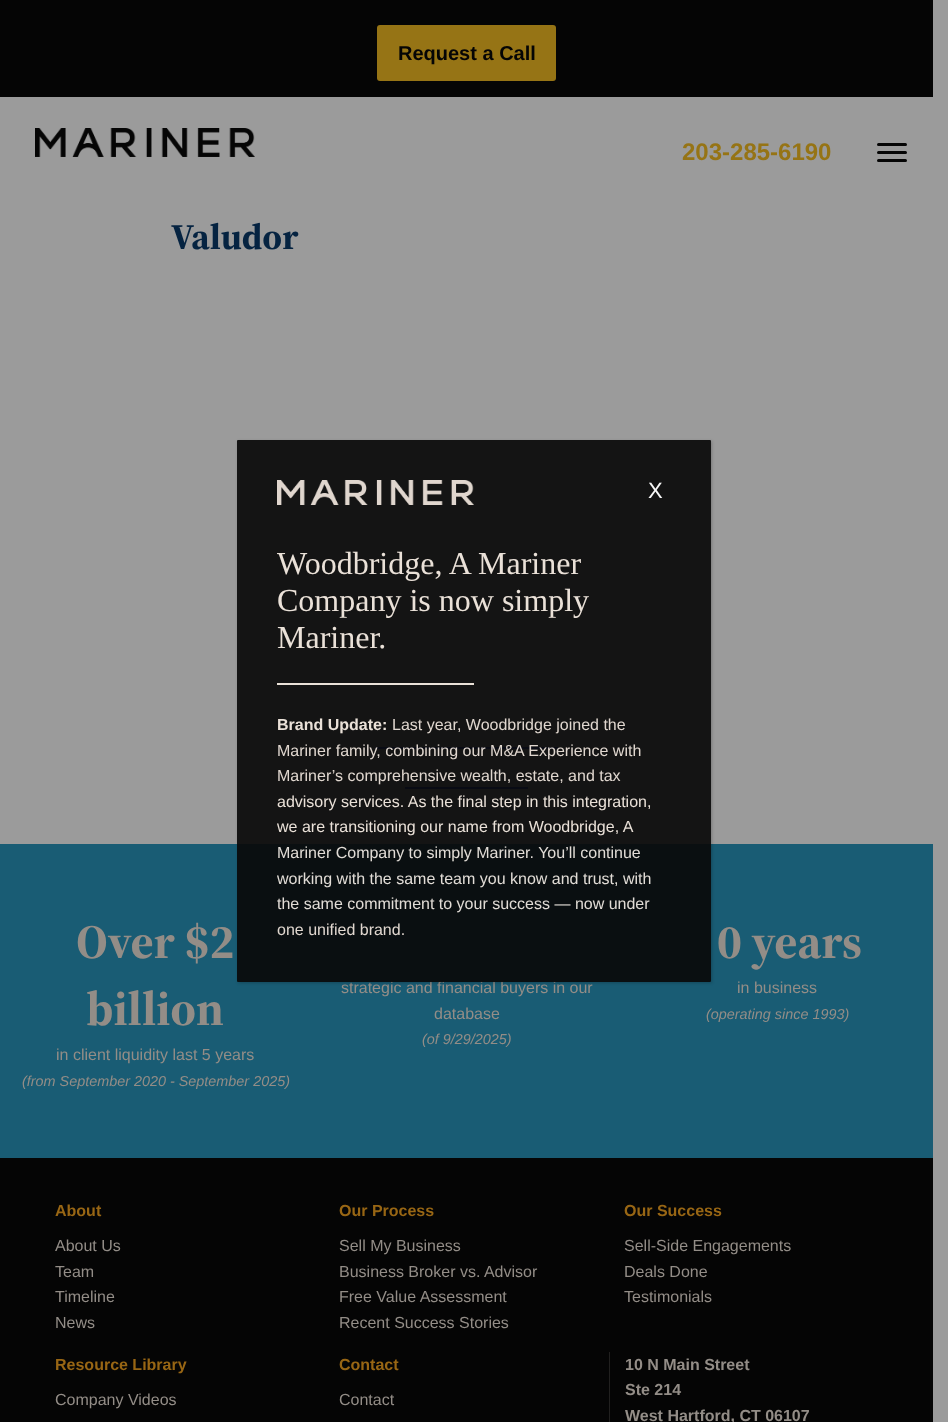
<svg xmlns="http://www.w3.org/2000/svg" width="948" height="1422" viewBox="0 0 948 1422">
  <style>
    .t1 { font: bold 20px Liberation Sans; fill: #050505; }
    .t2 { font: bold 24px Liberation Sans; fill: #967415; }
    .t3 { font: bold 36px 'Source Serif 4'; fill: #052341; }
    .t4 { font: bold 48px 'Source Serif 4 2'; fill: #938d87; }
    .t5 { font: 16px Liberation Sans; fill: #938d87; }
    .t6 { font: italic 14.4px Liberation Sans; fill: #938d87; }
    .t7 { font: bold 16px Liberation Sans; fill: #986614; }
    .t8 { font: bold 16px Liberation Sans; fill: #938d87; }
    .t9 { font: 22px Liberation Sans; fill: #f8f8f8; }
    .t10 { font: 32px Liberation Serif; fill: #eae1d8; }
    .t11 { font: bold 16px Liberation Sans; fill: #eae1d8; }
    .t12 { font: 16px Liberation Sans; fill: #e0d7cf; }
    .t13 { font: 16px Liberation Sans; fill: #eae1d8; }
    .t14 { font: 16px Liberation Sans; fill: #e1dcd6; }
  </style>
  <defs>
    <clipPath id="clip1"><path d="M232 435H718V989H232ZM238 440H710C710.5 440 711 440.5 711 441V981C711 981.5 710.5 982 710 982H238C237.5 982 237 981.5 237 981V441C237 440.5 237.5 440 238 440Z" clip-rule="evenodd"/></clipPath>
  </defs>
  <rect width="100%" height="100%" fill="#9b9b9b"/>
  <rect x="0" y="0" width="933" height="97" fill="#050505"/>
  <rect x="377" y="25" width="179" height="56" rx="3" fill="#967415"/>
  <text x="398" y="60" class="t1">Request a Call</text>
  <image x="35" y="128" width="220" height="29" href="images/1.png"/>
  <text x="682" y="160" class="t2">203-285-6190</text>
  <rect x="877" y="143" width="30" height="3" rx="1.5" fill="#050505"/>
  <rect x="877" y="151" width="30" height="3" rx="1.5" fill="#050505"/>
  <rect x="877" y="159" width="30" height="3" rx="1.5" fill="#050505"/>
  <text x="171" y="249" class="t3">Valudor</text>
  <rect x="375" y="747" width="183" height="2" fill="#05269b"/>
  <rect x="405" y="787" width="123" height="2" fill="#05269b"/>
  <rect x="0" y="844" width="933" height="314" fill="#195c74"/>
  <text x="76" y="958" class="t4">Over $2</text>
  <text x="86" y="1025" class="t4">billion</text>
  <text x="56" y="1060" class="t5">in client liquidity last 5 years</text>
  <text x="22" y="1086" class="t6">(from September 2020 - September 2025)</text>
  <text x="341" y="993" class="t5">strategic and financial buyers in our</text>
  <text x="434" y="1019" class="t5">database</text>
  <text x="422" y="1044" class="t6">(of 9/29/2025)</text>
  <text x="717" y="958" class="t4">0 years</text>
  <text x="737" y="993" class="t5">in business</text>
  <text x="706" y="1019" class="t6">(operating since 1993)</text>
  <rect x="0" y="1158" width="933" height="264" fill="#050505"/>
  <text x="55" y="1216" class="t7">About</text>
  <text x="55" y="1251" class="t5">About Us</text>
  <text x="55" y="1277" class="t5">Team</text>
  <text x="55" y="1302" class="t5">Timeline</text>
  <text x="55" y="1328" class="t5">News</text>
  <text x="339" y="1216" class="t7">Our Process</text>
  <text x="339" y="1251" class="t5">Sell My Business</text>
  <text x="339" y="1277" class="t5">Business Broker vs. Advisor</text>
  <text x="339" y="1302" class="t5">Free Value Assessment</text>
  <text x="339" y="1328" class="t5">Recent Success Stories</text>
  <text x="624" y="1216" class="t7">Our Success</text>
  <text x="624" y="1251" class="t5">Sell-Side Engagements</text>
  <text x="624" y="1277" class="t5">Deals Done</text>
  <text x="624" y="1302" class="t5">Testimonials</text>
  <text x="55" y="1370" class="t7">Resource Library</text>
  <text x="55" y="1405" class="t5">Company Videos</text>
  <text x="339" y="1370" class="t7">Contact</text>
  <text x="339" y="1405" class="t5">Contact</text>
  <rect x="609" y="1352" width="1" height="70" fill="#21201f"/>
  <text x="625" y="1370" class="t8">10 N Main Street</text>
  <text x="625" y="1395" class="t8">Ste 214</text>
  <text x="625" y="1421" class="t8">West Hartford, CT 06107</text>
  <g clip-path="url(#clip1)">
    <rect x="238" y="441" width="474" height="542" rx="1" fill="#02020236" filter="blur(1.5px)"/>
  </g>
  <rect x="237" y="440" width="474" height="542" rx="1" fill="#0a0a0aed"/>
  <text x="648" y="498" class="t9">X</text>
  <image x="277" y="480" width="197" height="25" href="images/2.png"/>
  <text x="277" y="574" class="t10">Woodbridge, A Mariner</text>
  <text x="277" y="611" class="t10">Company is now simply</text>
  <text x="277" y="648" class="t10">Mariner.</text>
  <rect x="277" y="683" width="197" height="2" fill="#eae1d8"/>
  <text x="277" y="730" class="t11">Brand Update:</text>
  <text x="392" y="730" class="t12">Last year, Woodbridge joined the</text>
  <text x="277" y="756" class="t12">Mariner family, combining our M&amp;A Experience with</text>
  <text x="277" y="781" class="t12">Mariner’s comprehensive wealth, estate, and tax</text>
  <text x="277" y="807" class="t13">advisory services. As the final step in this integration,</text>
  <text x="277" y="832" class="t13">we are transitioning our name from Woodbridge, A</text>
  <text x="277" y="858" class="t14">Mariner Company to simply Mariner. You’ll continue</text>
  <text x="277" y="884" class="t14">working with the same team you know and trust, with</text>
  <text x="277" y="909" class="t14">the same commitment to your success — now under</text>
  <text x="277" y="935" class="t12">one unified brand.</text>
</svg>
